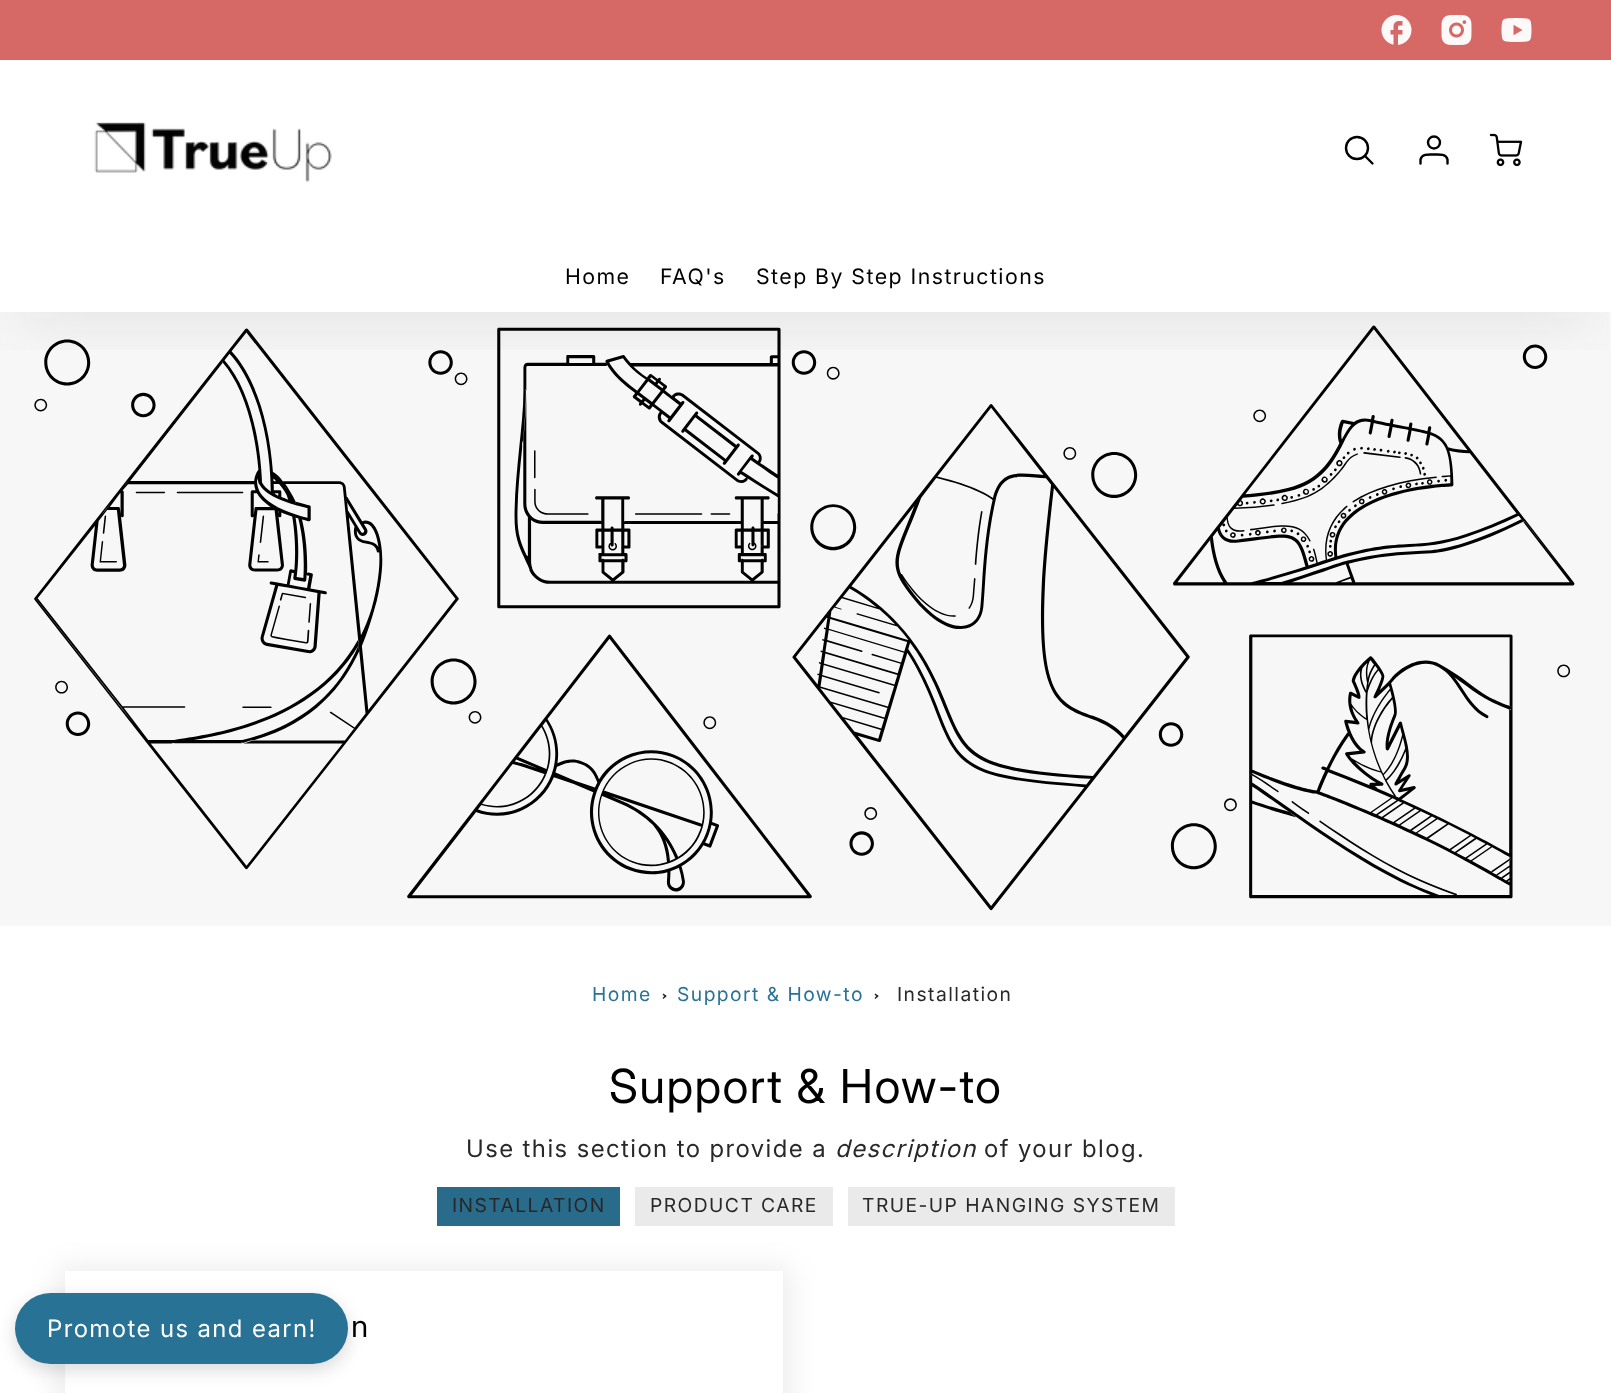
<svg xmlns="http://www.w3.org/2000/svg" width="1611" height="1393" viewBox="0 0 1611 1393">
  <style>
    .t1 { font: 21.3px Inter; letter-spacing: 1.45px; fill: #000; }
    .t2 { font: 24px 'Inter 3'; letter-spacing: 1.45px; fill: #fff; }
    .t3 { font: 19.25px Inter; letter-spacing: 1.45px; fill: #287295; }
    .t4 { font: 19.25px Inter; letter-spacing: 1.45px; fill: #282828; }
    .t5 { font: 46.9px 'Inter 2'; letter-spacing: 1.45px; fill: #000; }
    .t6 { font: 24px 'Inter 3'; letter-spacing: 1.45px; fill: #282828; }
    .t7 { font: italic 24px Inter; letter-spacing: 1.45px; fill: #282828; }
    .t8 { font: 30px 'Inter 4'; letter-spacing: 1.45px; fill: #000; }
  </style>
  <defs>
    <clipPath id="clip1"><rect x="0" y="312" width="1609" height="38"/></clipPath>
    <clipPath id="clip2"><path d="M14 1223H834V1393H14ZM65 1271H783V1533H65Z" clip-rule="evenodd"/></clipPath>
  </defs>
  <rect width="100%" height="100%" fill="#fff"/>
  <rect x="0" y="0" width="1611" height="60" fill="#d66965"/>
  <image x="1381" y="15" width="31" height="30" href="images/1.png"/>
  <image x="1441" y="15" width="31" height="30" href="images/2.png"/>
  <image x="1501" y="18" width="31" height="24" href="images/3.png"/>
  <rect x="0" y="312" width="1611" height="614" fill="#f7f7f7"/>
  <image x="34" y="325" width="1541" height="586" href="images/6.png"/>
  <g clip-path="url(#clip1)">
    <rect x="14" y="96" width="1581" height="222" fill="#2929291a" filter="blur(37.5px)"/>
  </g>
  <image x="94" y="122" width="238" height="60" href="images/4.png"/>
  <circle cx="1357" cy="148" r="11" fill="none" stroke="#000" stroke-width="2.4"/>
  <path d="M1372.5 163.5L1365 156" fill="none" stroke="#000" stroke-width="2.4" stroke-linecap="round" stroke-linejoin="round"/>
  <circle cx="1434" cy="142.5" r="6" fill="none" stroke="#000" stroke-width="2.4"/>
  <path d="M1447.5 163.5V159.5C1446 153.5 1438.5 154.5 1434 154.5C1429.5 154.5 1422 153.5 1420.5 159.5V163.5" fill="none" stroke="#000" stroke-width="2.4" stroke-linecap="round" stroke-linejoin="round"/>
  <image x="1489" y="133" width="34" height="34" href="images/5.png"/>
  <text x="565" y="284" class="t1">Home</text>
  <text x="660" y="284" class="t1">FAQ's</text>
  <text x="756" y="284" class="t1">Step By Step Instructions</text>
  <rect x="15" y="1299" width="333" height="71" rx="35.5" fill="#00000026" filter="blur(9px)"/>
  <rect x="437" y="1187" width="183" height="39" fill="#286b8a"/>
  <rect x="635" y="1187" width="198" height="39" fill="#eaeaea"/>
  <g clip-path="url(#clip2)">
    <rect x="57" y="1266" width="734" height="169" fill="#00000012" filter="blur(14px)"/>
  </g>
  <rect x="15" y="1293" width="333" height="71" rx="35.5" fill="#287295"/>
  <text x="47" y="1337" class="t2">Promote us and earn!</text>
  <text x="592" y="1001" class="t3">Home</text>
  <path d="M663.5 993.5L666.5 996L665.5 997.5L662.5 994.5Z" fill="#282828"/>
  <path d="M665.5 995L666.5 996L663.5 999L662.5 998Z" fill="#282828"/>
  <text x="677" y="1001" class="t3">Support &amp; How-to</text>
  <path d="M875.5 993.5L878.5 996L877.5 997.5L874.5 994.5Z" fill="#282828"/>
  <path d="M877.5 995L878.5 996L875.5 999L874.5 998Z" fill="#282828"/>
  <text x="897" y="1001" class="t4">Installation</text>
  <text x="609" y="1103" class="t5">Support &amp; How-to</text>
  <text x="466" y="1157" class="t6">Use this section to provide a</text>
  <text x="835" y="1157" class="t7">description</text>
  <text x="984" y="1157" class="t6">of your blog.</text>
  <text x="452" y="1212" class="t4">INSTALLATION</text>
  <text x="650" y="1212" class="t4">PRODUCT CARE</text>
  <rect x="848" y="1187" width="327" height="39" fill="#eaeaea"/>
  <text x="862" y="1212" class="t4">TRUE-UP HANGING SYSTEM</text>
  <text x="351" y="1337" class="t8">n</text>
</svg>
